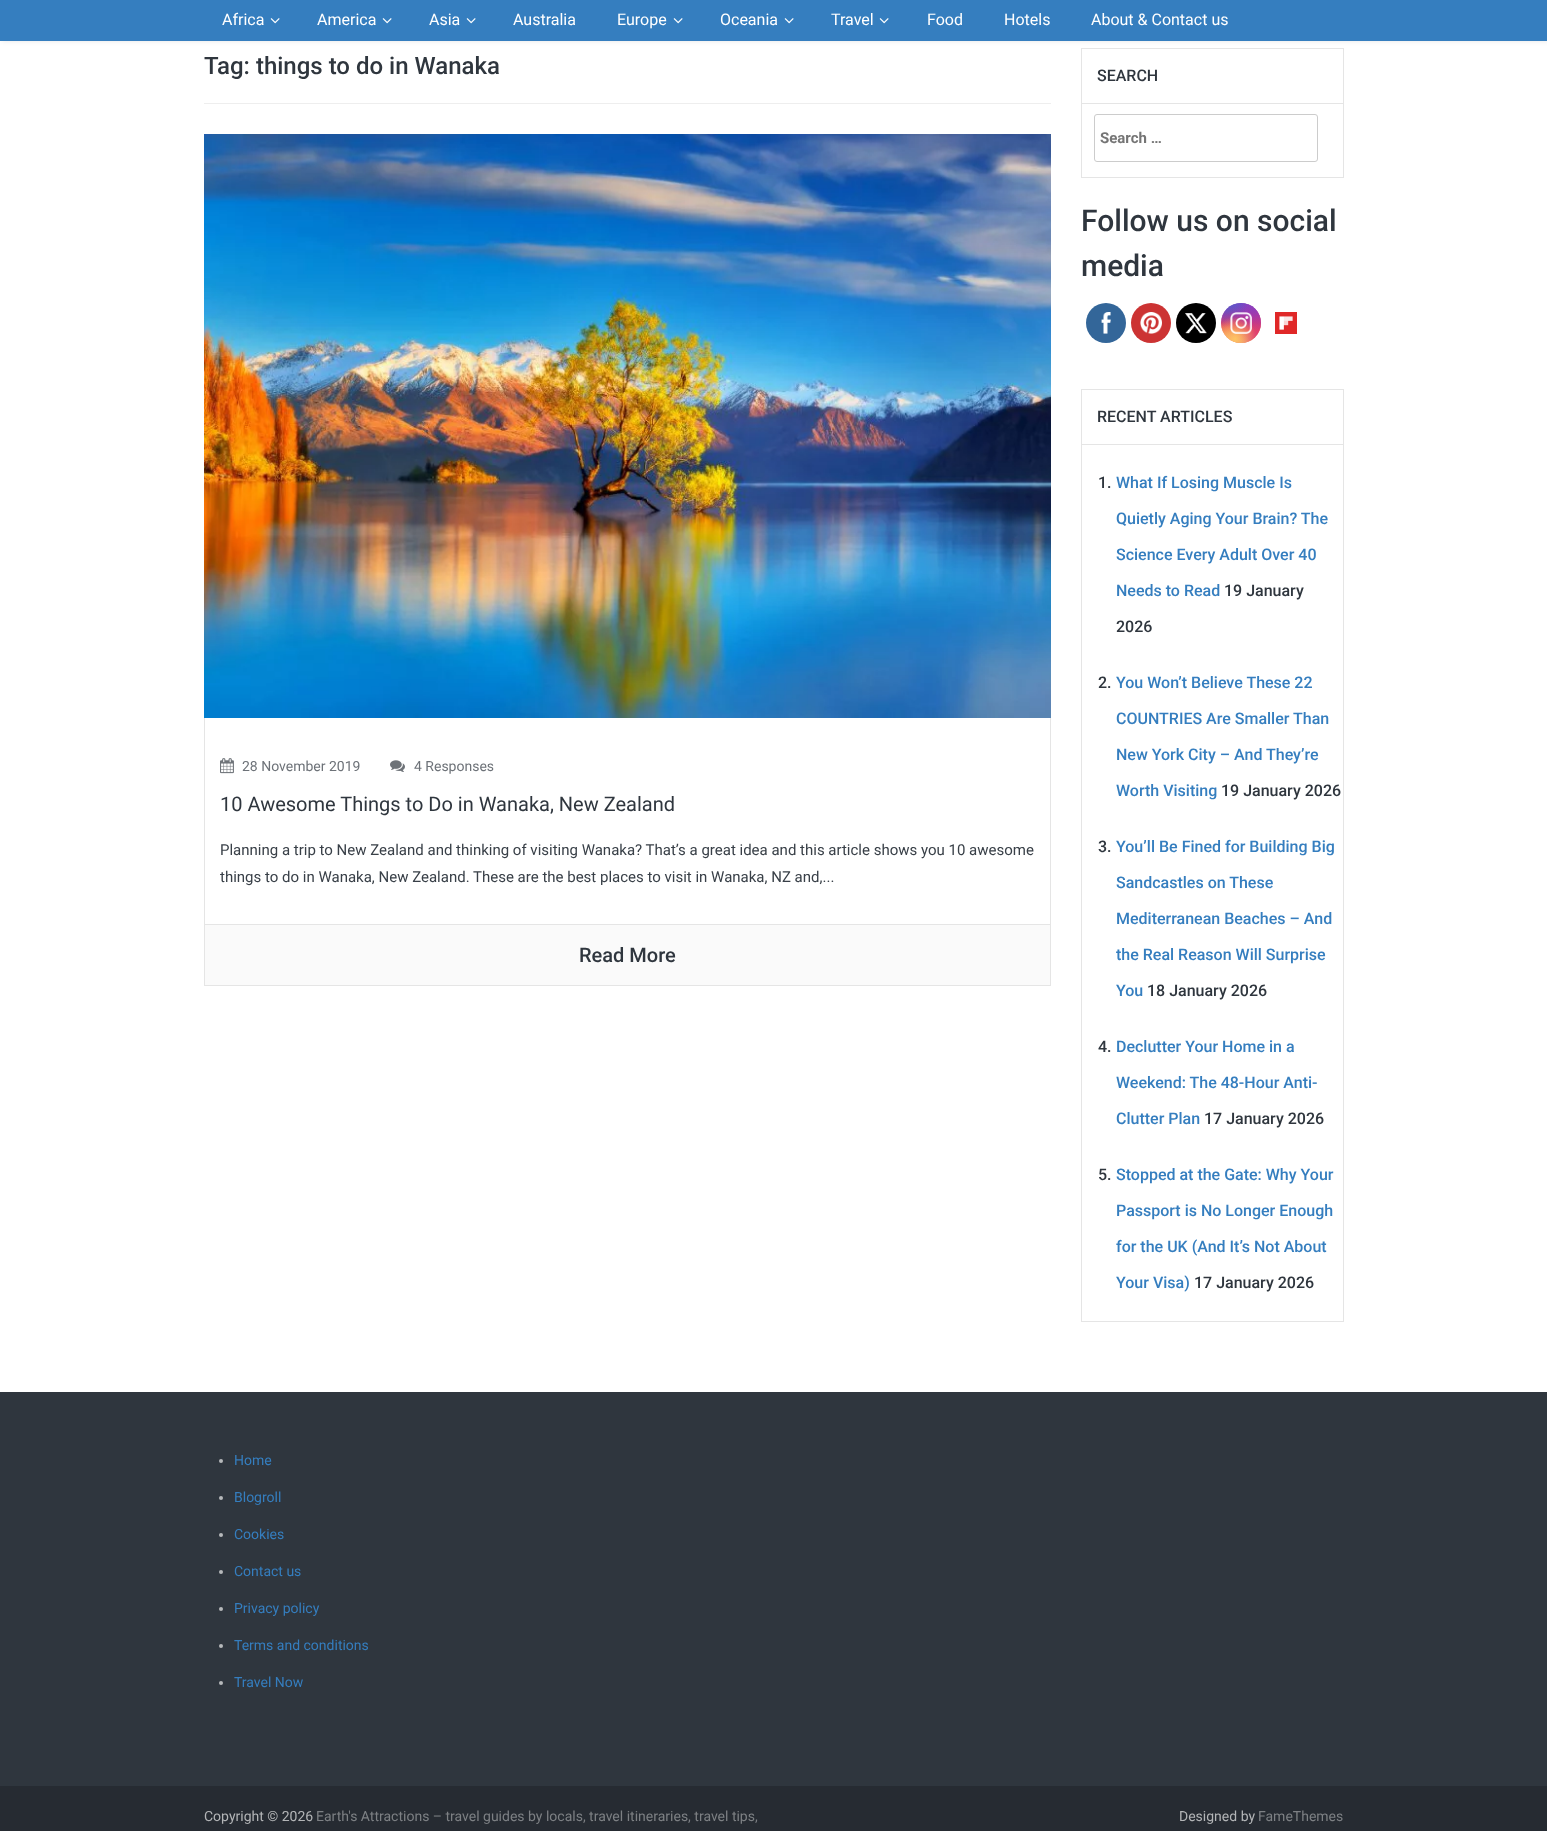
<svg xmlns="http://www.w3.org/2000/svg" width="1547" height="1831" viewBox="0 0 1547 1831">
  <style>
    .t1 { font: 16px Roboto; fill: #fff; }
    .t2 { font: 500 24px Roboto; fill: #2f363e; }
    .t3 { font: 14px Roboto; fill: #6d7278; }
    .t4 { font: 20px Roboto; fill: #2f363e; }
    .t5 { font: 15px Roboto; fill: #394048; }
    .t6 { font: 500 20px Roboto; fill: #2f363e; }
    .t7 { font: 500 16px Roboto; fill: #2f363e; }
    .t8 { font: bold 15px Roboto; fill: #757575; }
    .t9 { font: 500 30px Roboto; fill: #2f363e; }
    .t10 { font: 500 16px Roboto; fill: #357ebf; }
    .t11 { font: 14px Roboto; fill: #357ebf; }
    .t12 { font: 14px Roboto; fill: #b3b5b7; }
    .t13 { font: 14px Roboto; fill: #7d8084; }
  </style>
  <defs>
    <linearGradient id="g1" gradientUnits="userSpaceOnUse" x1="1241" y1="303" x2="1241" y2="343"><stop offset="0" stop-color="#6559ca"/><stop offset="0.3" stop-color="#bc318f"/><stop offset="0.5" stop-color="#e33f5f"/><stop offset="0.7" stop-color="#f77638"/><stop offset="1" stop-color="#fec66d"/></linearGradient>
    <radialGradient id="g2" gradientUnits="userSpaceOnUse" cx="1261" cy="343" r="57"><stop offset="0" stop-color="#d9317a"/><stop offset="1" stop-color="#d9317a" stop-opacity="0"/></radialGradient>
    <radialGradient id="g3" gradientUnits="userSpaceOnUse" cx="0" cy="0" r="1" gradientTransform="matrix(34 0 0 68 1245 295)"><stop offset="0" stop-color="#893dc2"/><stop offset="0.5" stop-color="#893dc2" stop-opacity="0"/></radialGradient>
    <radialGradient id="g4" gradientUnits="userSpaceOnUse" cx="1261" cy="303" r="57"><stop offset="0" stop-color="#893dc2"/><stop offset="0.5" stop-color="#893dc2" stop-opacity="0"/></radialGradient>
    <radialGradient id="g5" gradientUnits="userSpaceOnUse" cx="0" cy="0" r="1" gradientTransform="matrix(45 0 0 85 1229 283)"><stop offset="0" stop-color="#5258cf"/><stop offset="0.5" stop-color="#5258cf" stop-opacity="0"/></radialGradient>
    <radialGradient id="g6" gradientUnits="userSpaceOnUse" cx="0" cy="0" r="1" gradientTransform="matrix(57 0 0 71 1221 293)"><stop offset="0" stop-color="#5258cf"/><stop offset="0.5" stop-color="#5258cf" stop-opacity="0"/></radialGradient>
    <radialGradient id="g7" gradientUnits="userSpaceOnUse" cx="1221" cy="359" r="69"><stop offset="0" stop-color="#fec564"/><stop offset="0.5" stop-color="#fec564" stop-opacity="0"/></radialGradient>
    <radialGradient id="g8" gradientUnits="userSpaceOnUse" cx="1235" cy="339" r="44"><stop offset="0" stop-color="#fec564"/><stop offset="0.5" stop-color="#fec564" stop-opacity="0"/></radialGradient>
  </defs>
  <rect width="100%" height="100%" fill="#fff"/>
  <rect x="1081.5" y="48.5" width="262" height="129" fill="none" stroke="#e5e5e5"/>
  <rect x="2" y="0" width="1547" height="41" fill="#0000001a" filter="blur(2.5px)"/>
  <rect x="0" y="0" width="1547" height="41" fill="#357ebf"/>
  <text x="222" y="25" class="t1">Africa</text>
  <image x="270" y="18" width="10" height="6" href="images/1.png"/>
  <text x="317" y="25" class="t1">America</text>
  <image x="382" y="18" width="10" height="6" href="images/1.png"/>
  <text x="429" y="25" class="t1">Asia</text>
  <image x="466" y="18" width="10" height="6" href="images/1.png"/>
  <text x="513" y="25" class="t1">Australia</text>
  <text x="617" y="25" class="t1">Europe</text>
  <image x="673" y="18" width="10" height="6" href="images/1.png"/>
  <text x="720" y="25" class="t1">Oceania</text>
  <image x="784" y="18" width="10" height="6" href="images/1.png"/>
  <text x="831" y="25" class="t1">Travel</text>
  <image x="879" y="18" width="10" height="6" href="images/1.png"/>
  <text x="927" y="25" class="t1">Food</text>
  <text x="1004" y="25" class="t1">Hotels</text>
  <text x="1091" y="25" class="t1">About &amp; Contact us</text>
  <rect x="204" y="103" width="847" height="1" fill="#eee"/>
  <text x="204" y="74" class="t2">Tag: things to do in Wanaka</text>
  <image x="204" y="134" width="847" height="584" href="images/2.png"/>
  <rect x="1050" y="718" width="1" height="268" fill="#e5e5e5"/>
  <rect x="204" y="924" width="847" height="1" fill="#e5e5e5"/>
  <rect x="204" y="718" width="1" height="207" fill="#e5e5e5"/>
  <image x="220" y="758" width="14" height="16" href="images/3.png"/>
  <text x="242" y="771" class="t3">28 November 2019</text>
  <image x="390" y="760" width="15" height="12" href="images/4.png"/>
  <text x="414" y="771" class="t3">4 Responses</text>
  <text x="220" y="811" class="t4">10 Awesome Things to Do in Wanaka, New Zealand</text>
  <text x="220" y="855" class="t5">Planning a trip to New Zealand and thinking of visiting Wanaka? That’s a great idea and this article shows you 10 awesome</text>
  <text x="220" y="882" class="t5">things to do in Wanaka, New Zealand. These are the best places to visit in Wanaka, NZ and,...</text>
  <rect x="205" y="925" width="845" height="60" fill="#fafafa"/>
  <rect x="204" y="985" width="847" height="1" fill="#e5e5e5"/>
  <rect x="204" y="925" width="1" height="61" fill="#e5e5e5"/>
  <text x="579" y="962" class="t6">Read More</text>
  <rect x="1082" y="103" width="261" height="1" fill="#e5e5e5"/>
  <text x="1097" y="81" class="t7">SEARCH</text>
  <rect x="1094.5" y="114.5" width="223" height="47" rx="2.5" fill="none" stroke="#ccc"/>
  <text x="1100" y="143" class="t8">Search …</text>
  <text x="1081" y="231" class="t9">Follow us on social</text>
  <text x="1081" y="276" class="t9">media</text>
  <circle cx="1106" cy="323" r="20" fill="#369"/>
  <image x="1101" y="312" width="10" height="22" href="images/5.png"/>
  <circle cx="1151" cy="323" r="20" fill="#c33"/>
  <image x="1140" y="312" width="22" height="22" href="images/6.png"/>
  <circle cx="1196" cy="323" r="20" fill="#000"/>
  <image x="1185" y="313" width="22" height="21" href="images/7.png"/>
  <circle cx="1241" cy="323" r="20" fill="url(#g1)"/>
  <circle cx="1241" cy="323" r="20" fill="url(#g2)"/>
  <circle cx="1241" cy="323" r="20" fill="url(#g3)"/>
  <circle cx="1241" cy="323" r="20" fill="url(#g4)"/>
  <circle cx="1241" cy="323" r="20" fill="url(#g5)"/>
  <circle cx="1241" cy="323" r="20" fill="url(#g6)"/>
  <circle cx="1241" cy="323" r="20" fill="url(#g7)"/>
  <circle cx="1241" cy="323" r="20" fill="url(#g8)"/>
  <image x="1230" y="312" width="22" height="22" href="images/8.png"/>
  <image x="1275" y="312" width="22" height="22" href="images/9.png"/>
  <rect x="1081.5" y="389.5" width="262" height="932" fill="none" stroke="#e5e5e5"/>
  <rect x="1082" y="444" width="261" height="1" fill="#e5e5e5"/>
  <text x="1097" y="422" class="t7">RECENT ARTICLES</text>
  <text x="1098" y="488" class="t7">1.</text>
  <text x="1116" y="488" class="t10">What If Losing Muscle Is</text>
  <text x="1116" y="524" class="t10">Quietly Aging Your Brain? The</text>
  <text x="1116" y="560" class="t10">Science Every Adult Over 40</text>
  <text x="1116" y="596" class="t10">Needs to Read</text>
  <text x="1224" y="596" class="t7">19 January</text>
  <text x="1116" y="632" class="t7">2026</text>
  <text x="1098" y="688" class="t7">2.</text>
  <text x="1116" y="688" class="t10">You Won’t Believe These 22</text>
  <text x="1116" y="724" class="t10">COUNTRIES Are Smaller Than</text>
  <text x="1116" y="760" class="t10">New York City – And They’re</text>
  <text x="1116" y="796" class="t10">Worth Visiting</text>
  <text x="1221" y="796" class="t7">19 January 2026</text>
  <text x="1098" y="852" class="t7">3.</text>
  <text x="1116" y="852" class="t10">You’ll Be Fined for Building Big</text>
  <text x="1116" y="888" class="t10">Sandcastles on These</text>
  <text x="1116" y="924" class="t10">Mediterranean Beaches – And</text>
  <text x="1116" y="960" class="t10">the Real Reason Will Surprise</text>
  <text x="1116" y="996" class="t10">You</text>
  <text x="1147" y="996" class="t7">18 January 2026</text>
  <text x="1098" y="1052" class="t7">4.</text>
  <text x="1116" y="1052" class="t10">Declutter Your Home in a</text>
  <text x="1116" y="1088" class="t10">Weekend: The 48-Hour Anti-</text>
  <text x="1116" y="1124" class="t10">Clutter Plan</text>
  <text x="1204" y="1124" class="t7">17 January 2026</text>
  <text x="1098" y="1180" class="t7">5.</text>
  <text x="1116" y="1180" class="t10">Stopped at the Gate: Why Your</text>
  <text x="1116" y="1216" class="t10">Passport is No Longer Enough</text>
  <text x="1116" y="1252" class="t10">for the UK (And It’s Not About</text>
  <text x="1116" y="1288" class="t10">Your Visa)</text>
  <text x="1194" y="1288" class="t7">17 January 2026</text>
  <rect x="0" y="1392" width="1547" height="394" fill="#2f363e"/>
  <circle cx="221" cy="1461" r="2" fill="#b6b9bb"/>
  <text x="234" y="1465" class="t11">Home</text>
  <circle cx="221" cy="1498" r="2" fill="#b6b9bb"/>
  <text x="234" y="1502" class="t11">Blogroll</text>
  <circle cx="221" cy="1535" r="2" fill="#b6b9bb"/>
  <text x="234" y="1539" class="t11">Cookies</text>
  <circle cx="221" cy="1572" r="2" fill="#b6b9bb"/>
  <text x="234" y="1576" class="t11">Contact us</text>
  <circle cx="221" cy="1609" r="2" fill="#b6b9bb"/>
  <text x="234" y="1613" class="t11">Privacy policy</text>
  <circle cx="221" cy="1646" r="2" fill="#b6b9bb"/>
  <text x="234" y="1650" class="t11">Terms and conditions</text>
  <circle cx="221" cy="1683" r="2" fill="#b6b9bb"/>
  <text x="234" y="1687" class="t11">Travel Now</text>
  <rect x="0" y="1786" width="1547" height="45" fill="#262b32"/>
  <text x="204" y="1821" class="t12">Copyright © 2026</text>
  <text x="316" y="1821" class="t13">Earth's Attractions – travel guides by locals, travel itineraries, travel tips,</text>
  <text x="1179" y="1821" class="t12">Designed by</text>
  <text x="1258" y="1821" class="t13">FameThemes</text>
</svg>
